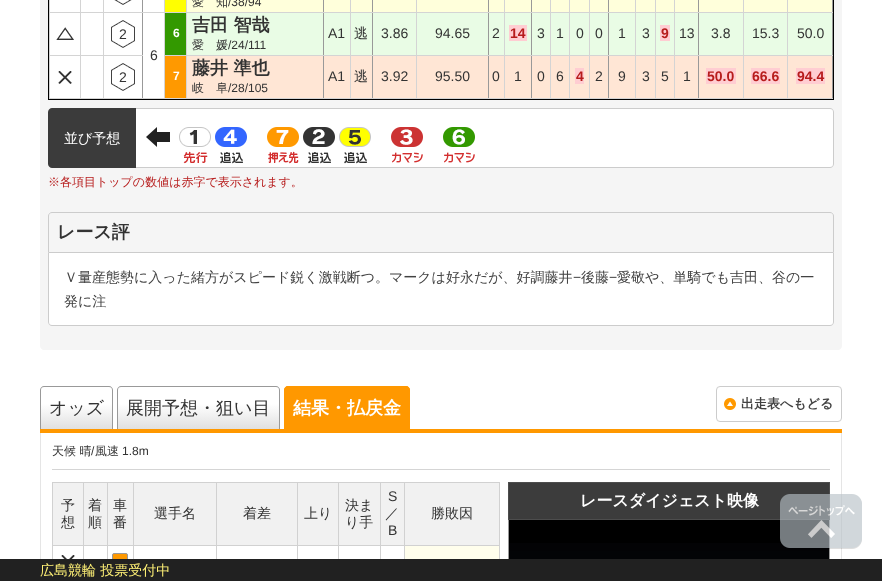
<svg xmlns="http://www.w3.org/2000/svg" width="882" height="581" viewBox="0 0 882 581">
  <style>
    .t1 { font: 500 12px WenQuanYi Zen Hei; fill: #333; }
    .t2 { font: 12px Liberation Sans; fill: #333; }
    .t3 { font: 14px Liberation Sans; fill: #333; }
    .t4 { font: bold 12px Liberation Sans; fill: #fff; }
    .t5 { font: bold 18px WenQuanYi Zen Hei; fill: #333; }
    .t6 { font: 500 14px WenQuanYi Zen Hei; fill: #333; }
    .t7 { font: bold 14px Liberation Sans; fill: #b71c1c; }
    .t8 { font: 500 14px WenQuanYi Zen Hei; fill: #fff; }
    .t9 { font: 500 12px WenQuanYi Zen Hei; fill: #b71c1c; }
    .t10 { font: 500 14px WenQuanYi Zen Hei; fill: #424242; }
    .t11 { font: 14px Liberation Sans; fill: #424242; }
    .t12 { font: 500 18px WenQuanYi Zen Hei; fill: #333; }
    .t13 { font: bold 18px WenQuanYi Zen Hei; fill: #fff; }
    .t14 { font: bold 13px WenQuanYi Zen Hei; fill: #424242; }
    .t15 { font: bold 16px WenQuanYi Zen Hei; fill: #fff; }
    .t16 { font: 500 14px WenQuanYi Zen Hei; fill: #fff176; }
  </style>
  <defs>
    <clipPath id="clip1"><path d="M44 386H109C111 386 113 388 113 390V429H40V390C40 388 42 386 44 386Z"/></clipPath>
    <linearGradient id="g1" gradientUnits="userSpaceOnUse" x1="77" y1="387" x2="77" y2="429"><stop offset="0.4" stop-color="#fff"/><stop offset="1" stop-color="#e0e0e0"/></linearGradient>
    <clipPath id="clip2"><path d="M121 386H276C278 386 280 388 280 390V429H117V390C117 388 119 386 121 386Z"/></clipPath>
    <linearGradient id="g2" gradientUnits="userSpaceOnUse" x1="199" y1="387" x2="199" y2="429"><stop offset="0.4" stop-color="#fff"/><stop offset="1" stop-color="#e0e0e0"/></linearGradient>
  </defs>
  <rect width="100%" height="100%" fill="#fff"/>
  <path d="M40-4H842V346C842 348 840 350 838 350H44C42 350 40 348 40 346Z" fill="#f5f5f5"/>
  <rect x="833" y="0" width="1" height="100" fill="#000"/>
  <rect x="48" y="99" width="786" height="1" fill="#000"/>
  <rect x="48" y="0" width="1" height="100" fill="#000"/>
  <rect x="50" y="0" width="30" height="12" fill="#fff"/>
  <rect x="80" y="0" width="1" height="99" fill="#d4d4d4"/>
  <rect x="49" y="12" width="32" height="1" fill="#d4d4d4"/>
  <rect x="49" y="0" width="1" height="13" fill="#d4d4d4"/>
  <rect x="81" y="0" width="22" height="12" fill="#fff"/>
  <rect x="103" y="0" width="1" height="99" fill="#d4d4d4"/>
  <rect x="81" y="12" width="23" height="1" fill="#d4d4d4"/>
  <rect x="104" y="0" width="38" height="12" fill="#fff"/>
  <rect x="142" y="0" width="1" height="99" fill="#999"/>
  <rect x="104" y="12" width="39" height="1" fill="#d4d4d4"/>
  <image x="114" y="0" width="18" height="5" href="images/1.png"/>
  <rect x="143" y="0" width="21" height="12" fill="#fff"/>
  <rect x="164" y="0" width="1" height="99" fill="#d4d4d4"/>
  <rect x="143" y="12" width="22" height="1" fill="#d4d4d4"/>
  <rect x="165" y="0" width="21" height="12" fill="#ff0"/>
  <rect x="186" y="0" width="1" height="99" fill="#d4d4d4"/>
  <rect x="165" y="12" width="22" height="1" fill="#d4d4d4"/>
  <rect x="187" y="0" width="136" height="12" fill="#ffffdb"/>
  <rect x="323" y="0" width="1" height="99" fill="#999"/>
  <rect x="187" y="12" width="137" height="1" fill="#d4d4d4"/>
  <text x="192" y="6" class="t1">愛　知</text>
  <text x="228" y="6" class="t2">/38/94</text>
  <rect x="324" y="0" width="26" height="12" fill="#ffffdb"/>
  <rect x="350" y="0" width="1" height="99" fill="#d4d4d4"/>
  <rect x="324" y="12" width="27" height="1" fill="#d4d4d4"/>
  <rect x="351" y="0" width="21" height="12" fill="#ffffdb"/>
  <rect x="372" y="0" width="1" height="99" fill="#999"/>
  <rect x="351" y="12" width="22" height="1" fill="#d4d4d4"/>
  <rect x="373" y="0" width="43" height="12" fill="#ffffdb"/>
  <rect x="416" y="0" width="1" height="99" fill="#d4d4d4"/>
  <rect x="373" y="12" width="44" height="1" fill="#d4d4d4"/>
  <rect x="417" y="0" width="71" height="12" fill="#ffffdb"/>
  <rect x="488" y="0" width="1" height="99" fill="#999"/>
  <rect x="417" y="12" width="72" height="1" fill="#d4d4d4"/>
  <rect x="489" y="0" width="15" height="12" fill="#ffffdb"/>
  <rect x="504" y="0" width="1" height="99" fill="#d4d4d4"/>
  <rect x="489" y="12" width="16" height="1" fill="#d4d4d4"/>
  <rect x="505" y="0" width="26" height="12" fill="#ffffdb"/>
  <rect x="531" y="0" width="1" height="99" fill="#999"/>
  <rect x="505" y="12" width="27" height="1" fill="#d4d4d4"/>
  <rect x="532" y="0" width="18" height="12" fill="#ffffdb"/>
  <rect x="550" y="0" width="1" height="99" fill="#d4d4d4"/>
  <rect x="532" y="12" width="19" height="1" fill="#d4d4d4"/>
  <rect x="551" y="0" width="18" height="12" fill="#ffffdb"/>
  <rect x="569" y="0" width="1" height="99" fill="#d4d4d4"/>
  <rect x="551" y="12" width="19" height="1" fill="#d4d4d4"/>
  <rect x="570" y="0" width="19" height="12" fill="#ffffdb"/>
  <rect x="589" y="0" width="1" height="99" fill="#d4d4d4"/>
  <rect x="570" y="12" width="20" height="1" fill="#d4d4d4"/>
  <rect x="590" y="0" width="18" height="12" fill="#ffffdb"/>
  <rect x="608" y="0" width="1" height="99" fill="#999"/>
  <rect x="590" y="12" width="19" height="1" fill="#d4d4d4"/>
  <rect x="609" y="0" width="26" height="12" fill="#ffffdb"/>
  <rect x="635" y="0" width="1" height="99" fill="#d4d4d4"/>
  <rect x="609" y="12" width="27" height="1" fill="#d4d4d4"/>
  <rect x="636" y="0" width="19" height="12" fill="#ffffdb"/>
  <rect x="655" y="0" width="1" height="99" fill="#d4d4d4"/>
  <rect x="636" y="12" width="20" height="1" fill="#d4d4d4"/>
  <rect x="656" y="0" width="18" height="12" fill="#ffffdb"/>
  <rect x="674" y="0" width="1" height="99" fill="#d4d4d4"/>
  <rect x="656" y="12" width="19" height="1" fill="#d4d4d4"/>
  <rect x="675" y="0" width="23" height="12" fill="#ffffdb"/>
  <rect x="698" y="0" width="1" height="99" fill="#999"/>
  <rect x="675" y="12" width="24" height="1" fill="#d4d4d4"/>
  <rect x="699" y="0" width="44" height="12" fill="#ffffdb"/>
  <rect x="743" y="0" width="1" height="99" fill="#d4d4d4"/>
  <rect x="699" y="12" width="45" height="1" fill="#d4d4d4"/>
  <rect x="744" y="0" width="43" height="12" fill="#ffffdb"/>
  <rect x="787" y="0" width="1" height="99" fill="#d4d4d4"/>
  <rect x="744" y="12" width="44" height="1" fill="#d4d4d4"/>
  <rect x="788" y="0" width="44" height="12" fill="#ffffdb"/>
  <rect x="832" y="0" width="1" height="99" fill="#999"/>
  <rect x="788" y="12" width="45" height="1" fill="#d4d4d4"/>
  <rect x="50" y="13" width="30" height="42" fill="#fff"/>
  <rect x="49" y="55" width="94" height="1" fill="#d4d4d4"/>
  <rect x="49" y="13" width="1" height="43" fill="#d4d4d4"/>
  <image x="56" y="27" width="18" height="13" href="images/2.png"/>
  <rect x="81" y="13" width="22" height="42" fill="#fff"/>
  <rect x="104" y="13" width="38" height="42" fill="#fff"/>
  <image x="111" y="20" width="24" height="28" href="images/3.png"/>
  <text x="119" y="39" class="t3">2</text>
  <rect x="165" y="13" width="21" height="42" fill="#390"/>
  <rect x="165" y="55" width="668" height="1" fill="#d4d4d4"/>
  <text x="173" y="37" class="t4">6</text>
  <rect x="187" y="13" width="136" height="42" fill="#e9fce5"/>
  <text x="192" y="31" class="t5">吉田 智哉</text>
  <text x="192" y="49" class="t1">愛　媛</text>
  <text x="228" y="49" class="t2">/24/111</text>
  <rect x="324" y="13" width="26" height="42" fill="#e9fce5"/>
  <text x="328" y="38" class="t3">A1</text>
  <rect x="351" y="13" width="21" height="42" fill="#e9fce5"/>
  <text x="354" y="38" class="t6">逃</text>
  <rect x="373" y="13" width="43" height="42" fill="#e9fce5"/>
  <text x="381" y="38" class="t3">3.86</text>
  <rect x="417" y="13" width="71" height="42" fill="#e9fce5"/>
  <text x="435" y="38" class="t3">94.65</text>
  <rect x="489" y="13" width="15" height="42" fill="#e9fce5"/>
  <text x="492" y="38" class="t3">2</text>
  <rect x="505" y="13" width="26" height="42" fill="#e9fce5"/>
  <rect x="509" y="25" width="18" height="16" fill="#ffcdd2"/>
  <text x="510" y="38" class="t7">14</text>
  <rect x="532" y="13" width="18" height="42" fill="#e9fce5"/>
  <text x="537" y="38" class="t3">3</text>
  <rect x="551" y="13" width="18" height="42" fill="#e9fce5"/>
  <text x="556" y="38" class="t3">1</text>
  <rect x="570" y="13" width="19" height="42" fill="#e9fce5"/>
  <text x="576" y="38" class="t3">0</text>
  <rect x="590" y="13" width="18" height="42" fill="#e9fce5"/>
  <text x="595" y="38" class="t3">0</text>
  <rect x="609" y="13" width="26" height="42" fill="#e9fce5"/>
  <text x="618" y="38" class="t3">1</text>
  <rect x="636" y="13" width="19" height="42" fill="#e9fce5"/>
  <text x="642" y="38" class="t3">3</text>
  <rect x="656" y="13" width="18" height="42" fill="#e9fce5"/>
  <rect x="660" y="25" width="10" height="16" fill="#ffcdd2"/>
  <text x="661" y="38" class="t7">9</text>
  <rect x="675" y="13" width="23" height="42" fill="#e9fce5"/>
  <text x="679" y="38" class="t3">13</text>
  <rect x="699" y="13" width="44" height="42" fill="#e9fce5"/>
  <text x="711" y="38" class="t3">3.8</text>
  <rect x="744" y="13" width="43" height="42" fill="#e9fce5"/>
  <text x="752" y="38" class="t3">15.3</text>
  <rect x="788" y="13" width="44" height="42" fill="#e9fce5"/>
  <text x="797" y="38" class="t3">50.0</text>
  <rect x="143" y="13" width="21" height="85" fill="#fff"/>
  <rect x="143" y="98" width="690" height="1" fill="#d4d4d4"/>
  <text x="150" y="60" class="t3">6</text>
  <rect x="50" y="56" width="30" height="42" fill="#fff"/>
  <rect x="49" y="98" width="94" height="1" fill="#d4d4d4"/>
  <rect x="49" y="56" width="1" height="43" fill="#d4d4d4"/>
  <image x="58" y="71" width="14" height="13" href="images/4.png"/>
  <rect x="81" y="56" width="22" height="42" fill="#fff"/>
  <rect x="104" y="56" width="38" height="42" fill="#fff"/>
  <image x="111" y="63" width="24" height="28" href="images/3.png"/>
  <text x="119" y="82" class="t3">2</text>
  <rect x="165" y="56" width="21" height="42" fill="#f90"/>
  <text x="173" y="80" class="t4">7</text>
  <rect x="187" y="56" width="136" height="42" fill="#ffe6d5"/>
  <text x="192" y="74" class="t5">藤井 準也</text>
  <text x="192" y="92" class="t1">岐　阜</text>
  <text x="228" y="92" class="t2">/28/105</text>
  <rect x="324" y="56" width="26" height="42" fill="#ffe6d5"/>
  <text x="328" y="81" class="t3">A1</text>
  <rect x="351" y="56" width="21" height="42" fill="#ffe6d5"/>
  <text x="354" y="81" class="t6">逃</text>
  <rect x="373" y="56" width="43" height="42" fill="#ffe6d5"/>
  <text x="381" y="81" class="t3">3.92</text>
  <rect x="417" y="56" width="71" height="42" fill="#ffe6d5"/>
  <text x="435" y="81" class="t3">95.50</text>
  <rect x="489" y="56" width="15" height="42" fill="#ffe6d5"/>
  <text x="492" y="81" class="t3">0</text>
  <rect x="505" y="56" width="26" height="42" fill="#ffe6d5"/>
  <text x="514" y="81" class="t3">1</text>
  <rect x="532" y="56" width="18" height="42" fill="#ffe6d5"/>
  <text x="537" y="81" class="t3">0</text>
  <rect x="551" y="56" width="18" height="42" fill="#ffe6d5"/>
  <text x="556" y="81" class="t3">6</text>
  <rect x="570" y="56" width="19" height="42" fill="#ffe6d5"/>
  <rect x="575" y="68" width="9" height="16" fill="#ffcdd2"/>
  <text x="576" y="81" class="t7">4</text>
  <rect x="590" y="56" width="18" height="42" fill="#ffe6d5"/>
  <text x="595" y="81" class="t3">2</text>
  <rect x="609" y="56" width="26" height="42" fill="#ffe6d5"/>
  <text x="618" y="81" class="t3">9</text>
  <rect x="636" y="56" width="19" height="42" fill="#ffe6d5"/>
  <text x="642" y="81" class="t3">3</text>
  <rect x="656" y="56" width="18" height="42" fill="#ffe6d5"/>
  <text x="661" y="81" class="t3">5</text>
  <rect x="675" y="56" width="23" height="42" fill="#ffe6d5"/>
  <text x="683" y="81" class="t3">1</text>
  <rect x="699" y="56" width="44" height="42" fill="#ffe6d5"/>
  <rect x="706" y="68" width="30" height="16" fill="#ffcdd2"/>
  <text x="707" y="81" class="t7">50.0</text>
  <rect x="744" y="56" width="43" height="42" fill="#ffe6d5"/>
  <rect x="751" y="68" width="29" height="16" fill="#ffcdd2"/>
  <text x="752" y="81" class="t7">66.6</text>
  <rect x="788" y="56" width="44" height="42" fill="#ffe6d5"/>
  <rect x="796" y="68" width="29" height="16" fill="#ffcdd2"/>
  <text x="797" y="81" class="t7">94.4</text>
  <path d="M52 108H136V168H52C50 168 48 166 48 164V112C48 110 50 108 52 108Z" fill="#3b3b3b"/>
  <text x="64" y="143" class="t8">並び予想</text>
  <path d="M136 108H830C832 108 834 110 834 112V164C834 166 832 168 830 168H136Z" fill="#fff"/>
  <path d="M136 108H830C832 108 834 110 834 112V164C834 166 832 168 830 168H136ZM136 109H830C832 109 833 110 833 112V164C833 166 832 167 830 167H136Z" fill="#ccc" fill-rule="evenodd"/>
  <image x="146" y="127" width="24" height="20" href="images/5.png"/>
  <image x="179" y="127" width="32" height="20" href="images/6.png"/>
  <image x="183" y="151" width="25" height="13" href="images/7.png"/>
  <image x="215" y="127" width="32" height="20" href="images/8.png"/>
  <image x="220" y="152" width="23" height="12" href="images/9.png"/>
  <image x="267" y="127" width="32" height="20" href="images/10.png"/>
  <image x="268" y="151" width="31" height="13" href="images/11.png"/>
  <image x="303" y="127" width="32" height="20" href="images/12.png"/>
  <image x="308" y="152" width="23" height="12" href="images/9.png"/>
  <image x="339" y="127" width="32" height="20" href="images/13.png"/>
  <image x="344" y="152" width="23" height="12" href="images/9.png"/>
  <image x="391" y="127" width="32" height="20" href="images/14.png"/>
  <image x="392" y="152" width="31" height="11" href="images/15.png"/>
  <image x="443" y="127" width="32" height="20" href="images/16.png"/>
  <image x="444" y="152" width="31" height="11" href="images/15.png"/>
  <text x="48" y="186" class="t9">※各項目トップの数値は赤字で表示されます。</text>
  <path d="M52 212.5H830C832 212.5 833.5 214 833.5 216V252.5H48.5V216C48.5 214 50 212.5 52 212.5Z" fill="none" stroke="#ccc"/>
  <text x="57" y="238" class="t5">レース評</text>
  <path d="M48 253H834V322C834 324 832 326 830 326H52C50 326 48 324 48 322Z" fill="#fff"/>
  <path d="M48 253H834V322C834 324 832 326 830 326H52C50 326 48 324 48 322ZM49 253H833V322C833 324 832 325 830 325H52C50 325 49 324 49 322Z" fill="#ccc" fill-rule="evenodd"/>
  <text x="64" y="282" class="t10">Ｖ量産態勢に入った緒方がスピード鋭く激戦断つ。マークは好永だが、好調藤井</text>
  <text x="573" y="282" class="t11">−</text>
  <text x="581" y="282" class="t10">後藤</text>
  <text x="609" y="282" class="t11">−</text>
  <text x="617" y="282" class="t10">愛敬や、単騎でも吉田、谷の一</text>
  <text x="64" y="306" class="t10">発に注</text>
  <rect x="40" y="429" width="802" height="4" fill="#ff9800"/>
  <g clip-path="url(#clip1)">
    <rect x="40" y="387" width="73" height="42" fill="url(#g1)"/>
  </g>
  <path d="M44 386H109C111 386 113 388 113 390V429H40V390C40 388 42 386 44 386ZM44 387H109C111 387 112 388 112 390V429H41V390C41 388 42 387 44 387Z" fill="#999" fill-rule="evenodd"/>
  <text x="49" y="414" class="t12">オッズ</text>
  <g clip-path="url(#clip2)">
    <rect x="117" y="387" width="163" height="42" fill="url(#g2)"/>
  </g>
  <path d="M121 386H276C278 386 280 388 280 390V429H117V390C117 388 119 386 121 386ZM121 387H276C278 387 279 388 279 390V429H118V390C118 388 119 387 121 387Z" fill="#999" fill-rule="evenodd"/>
  <text x="126" y="414" class="t12">展開予想・狙い目</text>
  <path d="M288 386H406C408 386 410 388 410 390V429H284V390C284 388 286 386 288 386Z" fill="#ff9800"/>
  <path d="M288 386H406C408 386 410 388 410 390V429H284V390C284 388 286 386 288 386ZM288 387H406C408 387 409 388 409 390V429H285V390C285 388 286 387 288 387Z" fill="#ff9800" fill-rule="evenodd"/>
  <text x="293" y="414" class="t13">結果・払戻金</text>
  <rect x="716.5" y="386.5" width="125" height="35" rx="3.5" fill="none" stroke="#ccc"/>
  <image x="724" y="398" width="12" height="12" href="images/17.png"/>
  <text x="741" y="408" class="t14">出走表へもどる</text>
  <rect x="841" y="433" width="1" height="126" fill="#e5e5e5"/>
  <rect x="40" y="433" width="1" height="126" fill="#e5e5e5"/>
  <rect x="52" y="469" width="778" height="1" fill="#d5d5d5"/>
  <text x="52" y="455" class="t1">天候 晴</text>
  <text x="91" y="455" class="t2">/</text>
  <text x="95" y="455" class="t1">風速</text>
  <text x="122" y="455" class="t2">1.8m</text>
  <rect x="53" y="483" width="30" height="62" fill="#f1f1f1"/>
  <rect x="404" y="482" width="96" height="1" fill="#d1d1d1"/>
  <rect x="404" y="545" width="96" height="1" fill="#d1d1d1"/>
  <rect x="404" y="545" width="1" height="14" fill="#d1d1d1"/>
  <rect x="380" y="545" width="25" height="1" fill="#d1d1d1"/>
  <rect x="404" y="482" width="1" height="64" fill="#d1d1d1"/>
  <rect x="380" y="482" width="25" height="1" fill="#d1d1d1"/>
  <rect x="380" y="545" width="1" height="14" fill="#d1d1d1"/>
  <rect x="338" y="545" width="43" height="1" fill="#d1d1d1"/>
  <rect x="380" y="482" width="1" height="64" fill="#d1d1d1"/>
  <rect x="338" y="482" width="43" height="1" fill="#d1d1d1"/>
  <rect x="338" y="545" width="1" height="14" fill="#d1d1d1"/>
  <rect x="297" y="545" width="42" height="1" fill="#d1d1d1"/>
  <rect x="338" y="482" width="1" height="64" fill="#d1d1d1"/>
  <rect x="297" y="482" width="42" height="1" fill="#d1d1d1"/>
  <rect x="297" y="545" width="1" height="14" fill="#d1d1d1"/>
  <rect x="216" y="545" width="82" height="1" fill="#d1d1d1"/>
  <rect x="297" y="482" width="1" height="64" fill="#d1d1d1"/>
  <rect x="216" y="482" width="82" height="1" fill="#d1d1d1"/>
  <rect x="216" y="545" width="1" height="14" fill="#d1d1d1"/>
  <rect x="133" y="545" width="84" height="1" fill="#d1d1d1"/>
  <rect x="216" y="482" width="1" height="64" fill="#d1d1d1"/>
  <rect x="133" y="482" width="84" height="1" fill="#d1d1d1"/>
  <rect x="133" y="545" width="1" height="14" fill="#d1d1d1"/>
  <rect x="107" y="545" width="27" height="1" fill="#d1d1d1"/>
  <rect x="133" y="482" width="1" height="64" fill="#d1d1d1"/>
  <rect x="107" y="482" width="27" height="1" fill="#d1d1d1"/>
  <rect x="107" y="545" width="1" height="14" fill="#d1d1d1"/>
  <rect x="83" y="545" width="25" height="1" fill="#d1d1d1"/>
  <rect x="107" y="482" width="1" height="64" fill="#d1d1d1"/>
  <rect x="83" y="482" width="25" height="1" fill="#d1d1d1"/>
  <rect x="83" y="545" width="1" height="14" fill="#d1d1d1"/>
  <rect x="52" y="545" width="32" height="1" fill="#d1d1d1"/>
  <rect x="83" y="482" width="1" height="64" fill="#d1d1d1"/>
  <rect x="52" y="482" width="32" height="1" fill="#d1d1d1"/>
  <rect x="52" y="545" width="1" height="14" fill="#d1d1d1"/>
  <rect x="52" y="482" width="1" height="64" fill="#d1d1d1"/>
  <text x="61" y="510" class="t6">予</text>
  <text x="61" y="527" class="t6">想</text>
  <rect x="84" y="483" width="23" height="62" fill="#f1f1f1"/>
  <text x="88" y="510" class="t6">着</text>
  <text x="88" y="527" class="t6">順</text>
  <rect x="108" y="483" width="25" height="62" fill="#f1f1f1"/>
  <text x="113" y="510" class="t6">車</text>
  <text x="113" y="527" class="t6">番</text>
  <rect x="134" y="483" width="82" height="62" fill="#f1f1f1"/>
  <text x="154" y="518" class="t6">選手名</text>
  <rect x="217" y="483" width="80" height="62" fill="#f1f1f1"/>
  <text x="243" y="518" class="t6">着差</text>
  <rect x="298" y="483" width="40" height="62" fill="#f1f1f1"/>
  <text x="304" y="518" class="t6">上り</text>
  <rect x="339" y="483" width="41" height="62" fill="#f1f1f1"/>
  <text x="345" y="510" class="t6">決ま</text>
  <text x="345" y="527" class="t6">り手</text>
  <rect x="381" y="483" width="23" height="62" fill="#f1f1f1"/>
  <text x="388" y="501" class="t3">S</text>
  <text x="385" y="518" class="t6">／</text>
  <text x="388" y="535" class="t3">B</text>
  <rect x="405" y="483" width="94" height="62" fill="#f1f1f1"/>
  <rect x="499" y="545" width="1" height="14" fill="#d1d1d1"/>
  <rect x="499" y="482" width="1" height="64" fill="#d1d1d1"/>
  <text x="431" y="518" class="t6">勝敗因</text>
  <image x="61" y="555" width="14" height="4" href="images/18.png"/>
  <rect x="112.5" y="553.5" width="15" height="15" rx="1.5" fill="#f90" stroke="#999"/>
  <rect x="405" y="546" width="94" height="13" fill="#fffeec"/>
  <rect x="508.5" y="482.5" width="321" height="37" fill="#3c3c3c" stroke="#4d4d4d"/>
  <text x="580" y="506" class="t15">レースダイジェスト映像</text>
  <rect x="509" y="520" width="320" height="23" fill="#000"/>
  <rect x="829" y="520" width="1" height="39" fill="#999"/>
  <rect x="508" y="520" width="1" height="39" fill="#999"/>
  <image x="509" y="543" width="320" height="16" href="images/19.png"/>
  <image x="780" y="494" width="82" height="55" href="images/20.png"/>
  <rect x="0" y="559" width="882" height="22" fill="#212121"/>
  <text x="40" y="575" class="t16">広島競輪 投票受付中</text>
</svg>
